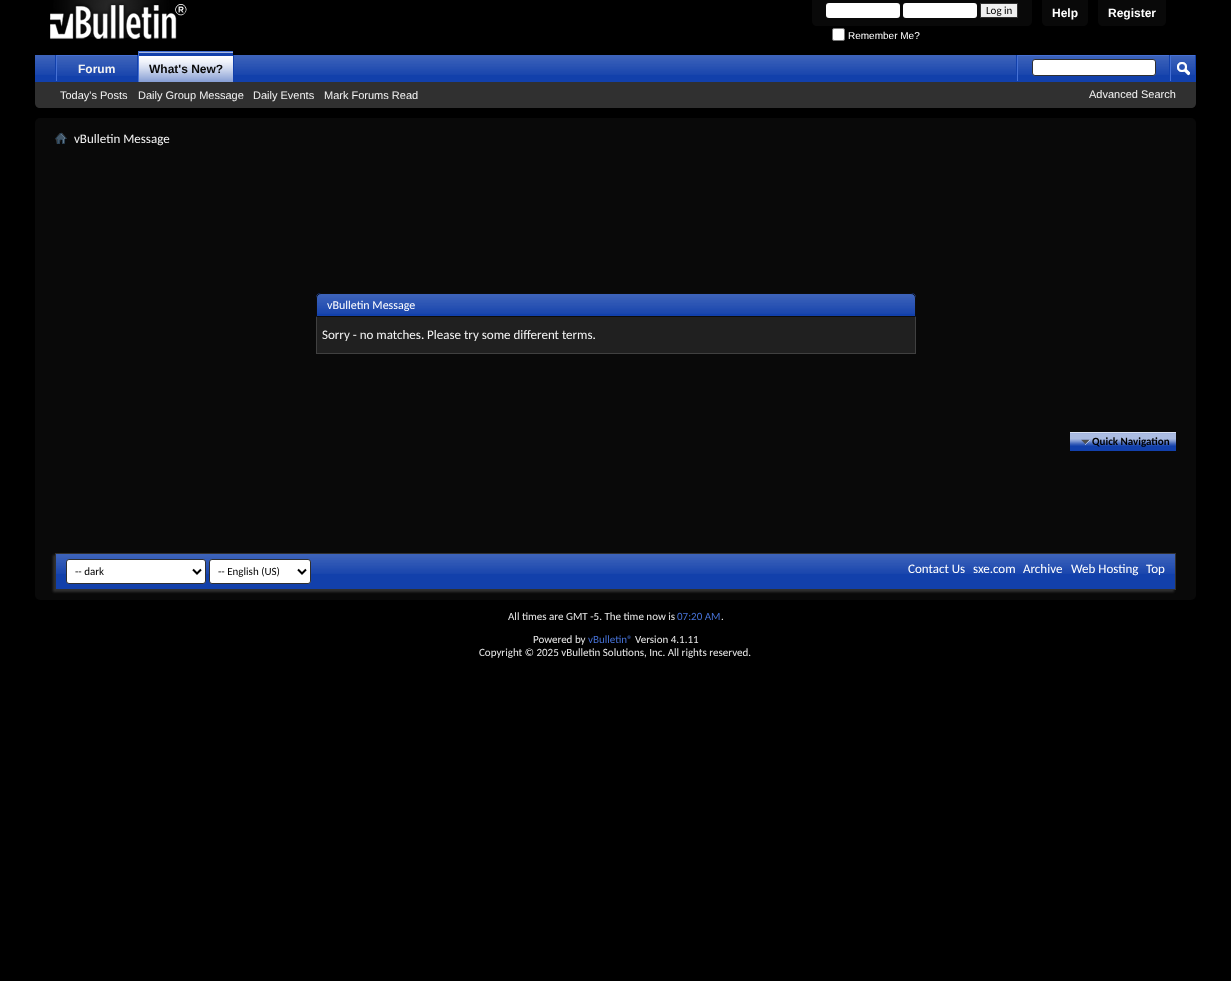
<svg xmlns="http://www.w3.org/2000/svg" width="1231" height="981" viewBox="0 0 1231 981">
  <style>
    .t1 { font: 11px Carlito; fill: #000; }
    .t2 { font: 10px Liberation Sans; fill: #fff; }
    .t3 { font: bold 12px Liberation Sans; fill: #fff; }
    .t4 { font: bold 12px Liberation Sans; fill: #090909; }
    .t5 { font: 11px Liberation Sans; fill: #f3f3f3; }
    .t6 { font: bold 12px Liberation Sans; fill: #f3f3f3; }
    .t7 { font: 13px Carlito; fill: #f3f3f3; }
    .t8 { font: 12px Carlito; fill: #fff; }
    .t9 { font: bold 11px Carlito; fill: #000; }
    .t10 { font: 13px Carlito; fill: #fff; }
    .t11 { font: 11px Carlito; fill: #e6e6e6; }
    .t12 { font: 11px Carlito; fill: #4671d5; }
  </style>
  <rect width="100%" height="100%" fill="#000"/>
  <image x="50" y="0" width="137" height="39" href="images/1.png"/>
  <path d="M812 0H1032V21C1032 24 1030 26 1027 26H817C814 26 812 24 812 21Z" fill="#090909"/>
  <rect x="826" y="3" width="74" height="15" rx="3" fill="#fff"/>
  <rect x="903" y="3" width="74" height="15" rx="3" fill="#fff"/>
  <rect x="980.5" y="3.5" width="37" height="14" fill="#efefef" stroke="#303030"/>
  <text x="986" y="14" class="t1">Log in</text>
  <rect x="832.5" y="28.5" width="12" height="12" rx="1.5" fill="#fff" stroke="#767676"/>
  <text x="848" y="39" class="t2">Remember Me?</text>
  <path d="M1042 0H1088V21C1088 24 1086 26 1083 26H1047C1044 26 1042 24 1042 21Z" fill="#090909"/>
  <text x="1052" y="17" class="t3">Help</text>
  <path d="M1098 0H1166V21C1166 24 1164 26 1161 26H1103C1100 26 1098 24 1098 21Z" fill="#090909"/>
  <text x="1108" y="17" class="t3">Register</text>
  <path d="M35 55H1196V103C1196 106 1194 108 1191 108H40C37 108 35 106 35 103Z" fill="#303030"/>
  <rect x="35" y="55" width="1161" height="26" fill="#1240ab"/>
  <image x="35" y="55" width="1160" height="20" href="images/2.png"/>
  <rect x="233" y="55" width="1" height="26" fill="#1240ab"/>
  <rect x="139" y="52" width="94" height="23" fill="#1240ab"/>
  <rect x="137" y="55" width="1" height="27" fill="#1240ab"/>
  <rect x="55" y="55" width="1" height="27" fill="#1240ab"/>
  <rect x="56" y="55" width="81" height="1" fill="#4671d5"/>
  <rect x="56" y="55" width="1" height="27" fill="#4671d5"/>
  <rect x="35" y="81" width="1161" height="1" fill="#1240ab"/>
  <image x="139" y="52" width="94" height="30" href="images/3.png"/>
  <rect x="138" y="51" width="95" height="1" fill="#4671d5"/>
  <rect x="138" y="51" width="1" height="31" fill="#4671d5"/>
  <text x="149" y="73" class="t4">What's New?</text>
  <text x="60" y="99" class="t5">Today's Posts</text>
  <text x="138" y="99" class="t5">Daily Group Message</text>
  <text x="253" y="99" class="t5">Daily Events</text>
  <text x="324" y="99" class="t5">Mark Forums Read</text>
  <rect x="57" y="56" width="80" height="19" fill="#1240ab"/>
  <image x="57" y="56" width="80" height="20" href="images/4.png"/>
  <text x="78" y="73" class="t6">Forum</text>
  <rect x="1016" y="55" width="1" height="26" fill="#1240ab"/>
  <rect x="1017" y="55" width="152" height="1" fill="#4671d5"/>
  <rect x="1017" y="55" width="1" height="26" fill="#4671d5"/>
  <rect x="1032.5" y="59.5" width="123" height="16" rx="2.5" fill="#fff" stroke="#303030"/>
  <rect x="1169" y="55" width="1" height="26" fill="#1240ab"/>
  <rect x="1170" y="55" width="25" height="1" fill="#4671d5"/>
  <rect x="1170" y="55" width="1" height="26" fill="#4671d5"/>
  <image x="1177" y="62" width="13" height="14" href="images/5.png"/>
  <text x="1089" y="98" class="t5">Advanced Search</text>
  <rect x="35" y="118" width="1161" height="482" rx="5" fill="#090909"/>
  <image x="55" y="132" width="12" height="12" href="images/6.png"/>
  <text x="74" y="143" class="t7">vBulletin Message</text>
  <path d="M321 293H911C914 293 916 295 916 298V317H316V298C316 295 318 293 321 293Z" fill="#1240ab"/>
  <image x="316" y="294" width="600" height="20" href="images/7.png"/>
  <path d="M321 293.5H911C913.5 293.5 915.5 295.5 915.5 298V316.5H316.5V298C316.5 295.5 318.5 293.5 321 293.5Z" fill="none" stroke="#0c0c0c"/>
  <text x="327" y="309" class="t8">vBulletin Message</text>
  <rect x="317" y="317" width="598" height="36" fill="#202020"/>
  <rect x="915" y="317" width="1" height="37" fill="#404040"/>
  <rect x="316" y="353" width="600" height="1" fill="#404040"/>
  <rect x="316" y="317" width="1" height="37" fill="#404040"/>
  <text x="322" y="339" class="t7">Sorry - no matches. Please try some different terms.</text>
  <rect x="1070" y="432" width="106" height="19" fill="#1240ab"/>
  <image x="1070" y="432" width="106" height="14" href="images/8.png"/>
  <image x="1081" y="439" width="9" height="6" href="images/9.png"/>
  <text x="1092" y="445" class="t9">Quick Navigation</text>
  <rect x="53" y="555" width="1121" height="37" fill="#303030" filter="blur(1px)"/>
  <rect x="56" y="554" width="1119" height="35" fill="#1240ab"/>
  <image x="56" y="554" width="1119" height="20" href="images/10.png"/>
  <rect x="55.5" y="553.5" width="1120" height="36" fill="none" stroke="#303030"/>
  <rect x="66.5" y="559.5" width="139" height="24" rx="2.5" fill="#fff" stroke="#303030"/>
  <path d="M193 569.5L197 573.5L201 569.5" fill="none" stroke="#000" stroke-width="2"/>
  <text x="75" y="575" class="t1">-- dark</text>
  <rect x="209.5" y="559.5" width="101" height="24" rx="2.5" fill="#fff" stroke="#303030"/>
  <path d="M298 569.5L302 573.5L306 569.5" fill="none" stroke="#000" stroke-width="2"/>
  <text x="218" y="575" class="t1">-- English (US)</text>
  <text x="908" y="573" class="t10">Contact Us</text>
  <text x="973" y="573" class="t10">sxe.com</text>
  <text x="1023" y="573" class="t10">Archive</text>
  <text x="1071" y="573" class="t10">Web Hosting</text>
  <text x="1146" y="573" class="t10">Top</text>
  <text x="508" y="620" class="t11">All times are GMT -5. The time now is</text>
  <text x="677" y="620" class="t12">07:20 AM</text>
  <text x="721" y="620" class="t11">.</text>
  <text x="533" y="643" class="t11">Powered by</text>
  <text x="588" y="643" class="t12">vBulletin®</text>
  <text x="635" y="643" class="t11">Version 4.1.11</text>
  <text x="479" y="656" class="t11">Copyright © 2025 vBulletin Solutions, Inc. All rights reserved.</text>
</svg>
